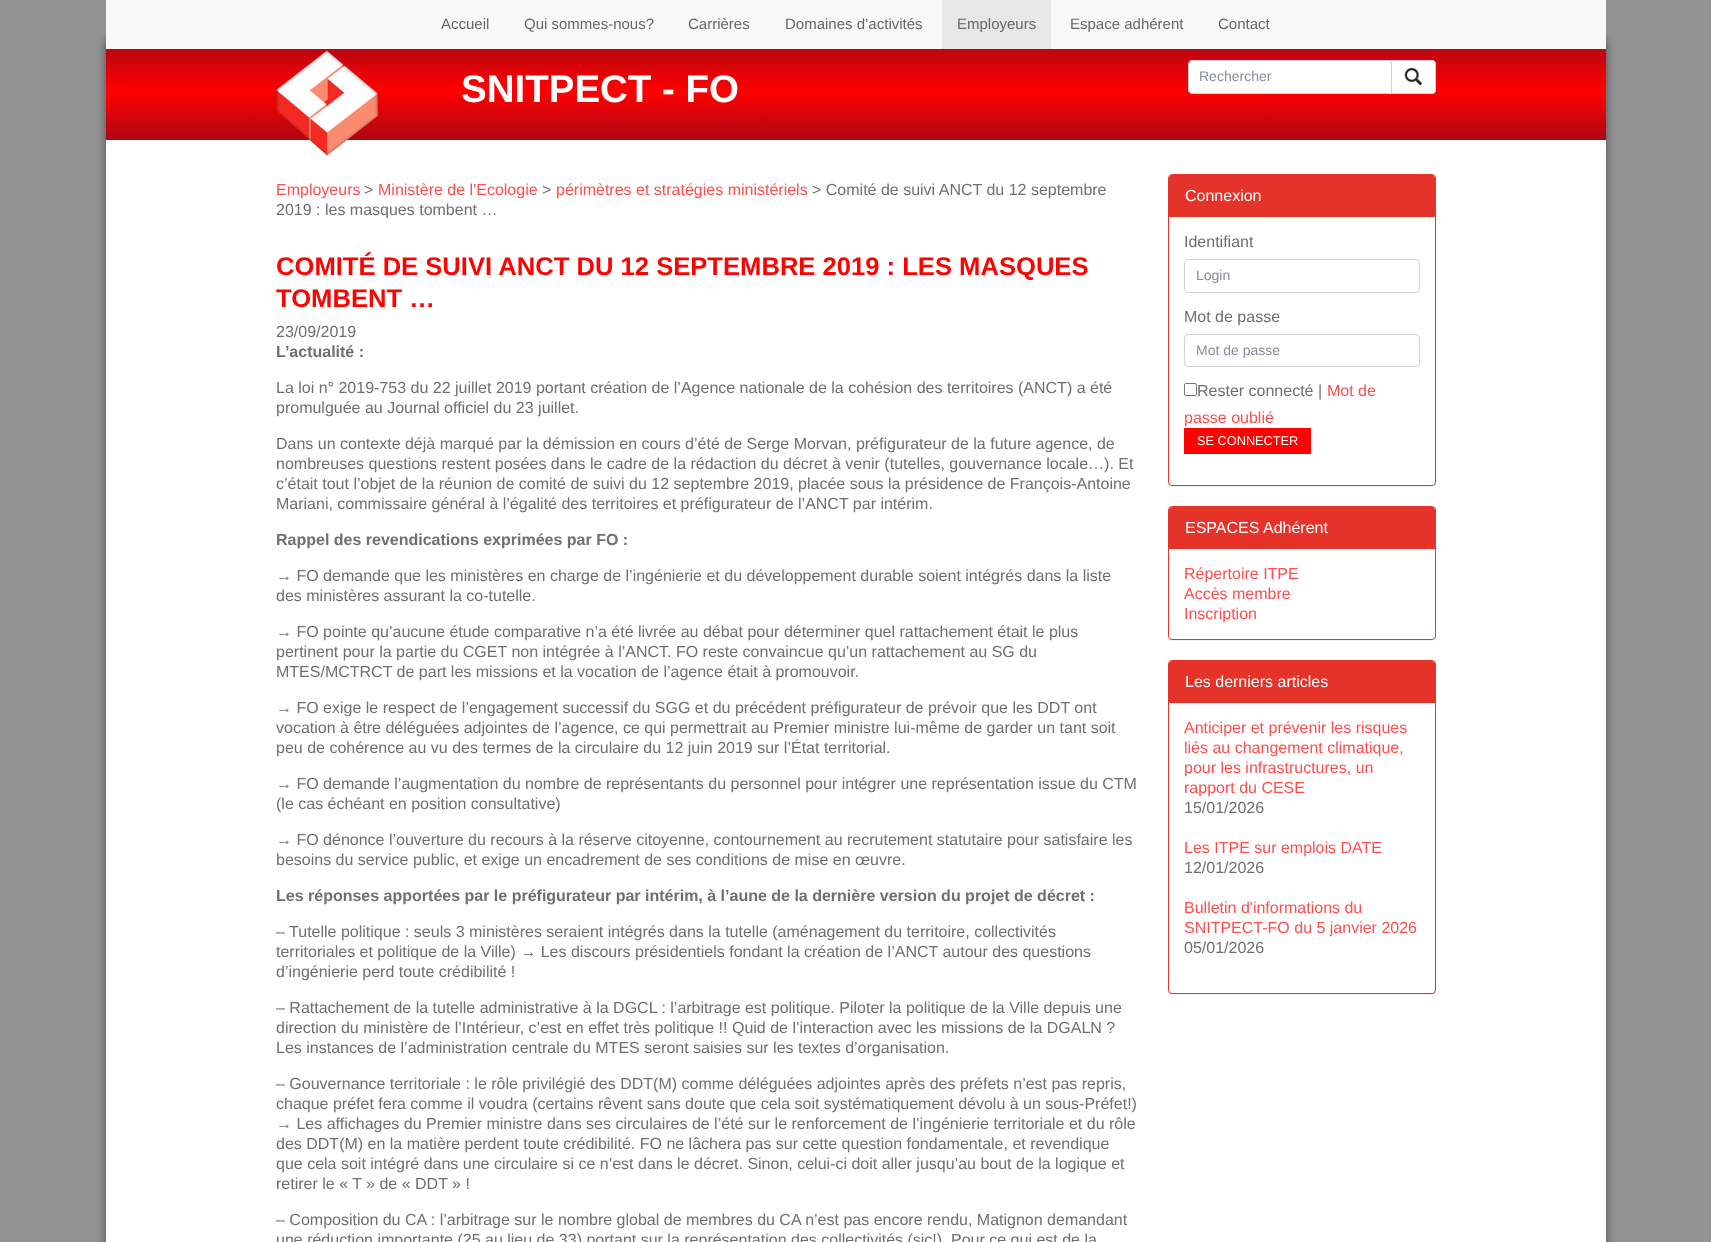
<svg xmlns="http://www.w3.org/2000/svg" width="1711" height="1242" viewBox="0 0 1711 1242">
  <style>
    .t1 { font: 15px Liberation Sans; fill: #666; }
    .t2 { font: bold 38.5px Liberation Sans; fill: #fff; }
    .t3 { font: 14px Liberation Sans; fill: #868e96; }
    .t4 { font: 16px Liberation Sans; fill: #ff4d4d; }
    .t5 { font: 16px Liberation Sans; fill: #706f6f; }
    .t6 { font: bold 25.6px Liberation Sans; fill: #ff0100; }
    .t7 { font: bold 16px Liberation Sans; fill: #706f6f; }
    .t8 { font: 16px Liberation Sans; fill: #fff; }
    .t9 { font: 12.75px Liberation Sans; fill: #fff; }
  </style>
  <defs>
    <linearGradient id="g1" gradientUnits="userSpaceOnUse" x1="856" y1="40" x2="856" y2="140"><stop offset="0" stop-color="#ad0714"/><stop offset="0.5" stop-color="#ff0100"/><stop offset="0.51" stop-color="#ff0100"/><stop offset="1" stop-color="#ad0714"/></linearGradient>
  </defs>
  <rect width="100%" height="100%" fill="#939393"/>
  <rect x="106" y="40" width="1500" height="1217" fill="#00000080" filter="blur(5px)"/>
  <rect x="106" y="0" width="1500" height="49" fill="#f8f8f8"/>
  <text x="441" y="29" class="t1">Accueil</text>
  <text x="524" y="29" class="t1">Qui sommes-nous?</text>
  <text x="688" y="29" class="t1">Carrières</text>
  <text x="785" y="29" class="t1">Domaines d’activités</text>
  <rect x="942" y="0" width="109" height="49" fill="#e7e7e7"/>
  <text x="957" y="29" class="t1">Employeurs</text>
  <text x="1070" y="29" class="t1">Espace adhérent</text>
  <text x="1218" y="29" class="t1">Contact</text>
  <rect x="106" y="49" width="1500" height="91" fill="url(#g1)"/>
  <rect x="106" y="140" width="1500" height="1102" fill="#fff"/>
  <image x="276" y="50" width="102" height="106" href="images/1.png"/>
  <text x="461" y="102" class="t2">SNITPECT - FO</text>
  <path d="M1191.5 61H1391V93H1191.5C1190 93 1189 92 1189 90.5V63.5C1189 62 1190 61 1191.5 61Z" fill="#fff"/>
  <path d="M1192 60.5H1391.5V93.5H1192C1190 93.5 1188.5 92 1188.5 90V64C1188.5 62 1190 60.5 1192 60.5Z" fill="none" stroke="#ced4da"/>
  <text x="1199" y="81" class="t3">Rechercher</text>
  <path d="M1391 60H1432C1434 60 1436 62 1436 64V90C1436 92 1434 94 1432 94H1391Z" fill="#fff"/>
  <image x="1404" y="67" width="19" height="19" href="images/2.png"/>
  <path d="M1391.5 60.5H1432C1434 60.5 1435.5 62 1435.5 64V90C1435.5 92 1434 93.5 1432 93.5H1391.5Z" fill="none" stroke="#ced4da"/>
  <text x="276" y="195" class="t4">Employeurs</text>
  <text x="364" y="195" class="t5">&gt;</text>
  <text x="378" y="195" class="t4">Ministère de l'Ecologie</text>
  <text x="542" y="195" class="t5">&gt;</text>
  <text x="556" y="195" class="t4">périmètres et stratégies ministériels</text>
  <text x="812" y="195" class="t5">&gt; Comité de suivi ANCT du 12 septembre</text>
  <text x="276" y="215" class="t5">2019 : les masques tombent …</text>
  <text x="276" y="275" class="t6">COMITÉ DE SUIVI ANCT DU 12 SEPTEMBRE 2019 : LES MASQUES</text>
  <text x="276" y="307" class="t6">TOMBENT …</text>
  <text x="276" y="337" class="t5">23/09/2019</text>
  <text x="276" y="357" class="t7">L’actualité :</text>
  <text x="276" y="393" class="t5">La loi n° 2019-753 du 22 juillet 2019 portant création de l’Agence nationale de la cohésion des territoires (ANCT) a été</text>
  <text x="276" y="413" class="t5">promulguée au Journal officiel du 23 juillet.</text>
  <text x="276" y="449" class="t5">Dans un contexte déjà marqué par la démission en cours d’été de Serge Morvan, préfigurateur de la future agence, de</text>
  <text x="276" y="469" class="t5">nombreuses questions restent posées dans le cadre de la rédaction du décret à venir (tutelles, gouvernance locale…). Et</text>
  <text x="276" y="489" class="t5">c’était tout l’objet de la réunion de comité de suivi du 12 septembre 2019, placée sous la présidence de François-Antoine</text>
  <text x="276" y="509" class="t5">Mariani, commissaire général à l’égalité des territoires et préfigurateur de l’ANCT par intérim.</text>
  <text x="276" y="545" class="t7">Rappel des revendications exprimées par FO :</text>
  <text x="276" y="581" class="t5">→ FO demande que les ministères en charge de l’ingénierie et du développement durable soient intégrés dans la liste</text>
  <text x="276" y="601" class="t5">des ministères assurant la co-tutelle.</text>
  <text x="276" y="637" class="t5">→ FO pointe qu’aucune étude comparative n’a été livrée au débat pour déterminer quel rattachement était le plus</text>
  <text x="276" y="657" class="t5">pertinent pour la partie du CGET non intégrée à l’ANCT. FO reste convaincue qu’un rattachement au SG du</text>
  <text x="276" y="677" class="t5">MTES/MCTRCT de part les missions et la vocation de l’agence était à promouvoir.</text>
  <text x="276" y="713" class="t5">→ FO exige le respect de l’engagement successif du SGG et du précédent préfigurateur de prévoir que les DDT ont</text>
  <text x="276" y="733" class="t5">vocation à être déléguées adjointes de l’agence, ce qui permettrait au Premier ministre lui-même de garder un tant soit</text>
  <text x="276" y="753" class="t5">peu de cohérence au vu des termes de la circulaire du 12 juin 2019 sur l’État territorial.</text>
  <text x="276" y="789" class="t5">→ FO demande l’augmentation du nombre de représentants du personnel pour intégrer une représentation issue du CTM</text>
  <text x="276" y="809" class="t5">(le cas échéant en position consultative)</text>
  <text x="276" y="845" class="t5">→ FO dénonce l’ouverture du recours à la réserve citoyenne, contournement au recrutement statutaire pour satisfaire les</text>
  <text x="276" y="865" class="t5">besoins du service public, et exige un encadrement de ses conditions de mise en œuvre.</text>
  <text x="276" y="901" class="t7">Les réponses apportées par le préfigurateur par intérim, à l’aune de la dernière version du projet de décret :</text>
  <text x="276" y="937" class="t5">– Tutelle politique : seuls 3 ministères seraient intégrés dans la tutelle (aménagement du territoire, collectivités</text>
  <text x="276" y="957" class="t5">territoriales et politique de la Ville) → Les discours présidentiels fondant la création de l’ANCT autour des questions</text>
  <text x="276" y="977" class="t5">d’ingénierie perd toute crédibilité !</text>
  <text x="276" y="1013" class="t5">– Rattachement de la tutelle administrative à la DGCL : l’arbitrage est politique. Piloter la politique de la Ville depuis une</text>
  <text x="276" y="1033" class="t5">direction du ministère de l’Intérieur, c’est en effet très politique !! Quid de l’interaction avec les missions de la DGALN ?</text>
  <text x="276" y="1053" class="t5">Les instances de l’administration centrale du MTES seront saisies sur les textes d’organisation.</text>
  <text x="276" y="1089" class="t5">– Gouvernance territoriale : le rôle privilégié des DDT(M) comme déléguées adjointes après des préfets n’est pas repris,</text>
  <text x="276" y="1109" class="t5">chaque préfet fera comme il voudra (certains rêvent sans doute que cela soit systématiquement dévolu à un sous-Préfet!)</text>
  <text x="276" y="1129" class="t5">→ Les affichages du Premier ministre dans ses circulaires de l’été sur le renforcement de l’ingénierie territoriale et du rôle</text>
  <text x="276" y="1149" class="t5">des DDT(M) en la matière perdent toute crédibilité. FO ne lâchera pas sur cette question fondamentale, et revendique</text>
  <text x="276" y="1169" class="t5">que cela soit intégré dans une circulaire si ce n’est dans le décret. Sinon, celui-ci doit aller jusqu’au bout de la logique et</text>
  <text x="276" y="1189" class="t5">retirer le « T » de « DDT » !</text>
  <text x="276" y="1225" class="t5">– Composition du CA : l’arbitrage sur le nombre global de membres du CA n’est pas encore rendu, Matignon demandant</text>
  <text x="276" y="1245" class="t5">une réduction importante (25 au lieu de 33) portant sur la représentation des collectivités (sic!). Pour ce qui est de la</text>
  <rect x="1168" y="175" width="268" height="312" rx="4" fill="#0000000d" filter="blur(0.5px)"/>
  <rect x="1168.5" y="174.5" width="267" height="311" rx="3.5" fill="#fff" stroke="#e63329"/>
  <path d="M1172 175.5H1432C1433.5 175.5 1434.5 176.5 1434.5 178V216.5H1169.5V178C1169.5 176.5 1170.5 175.5 1172 175.5Z" fill="#e63329" stroke="#e63329"/>
  <text x="1185" y="201" class="t8">Connexion</text>
  <text x="1184" y="247" class="t5">Identifiant</text>
  <rect x="1184.5" y="259.5" width="235" height="33" rx="3.5" fill="none" stroke="#ced4da"/>
  <text x="1196" y="280" class="t3">Login</text>
  <text x="1184" y="322" class="t5">Mot de passe</text>
  <rect x="1184.5" y="334.5" width="235" height="32" rx="3.5" fill="none" stroke="#ced4da"/>
  <text x="1196" y="355" class="t3">Mot de passe</text>
  <rect x="1184.5" y="383.5" width="12" height="12" rx="1.5" fill="none" stroke="#767676"/>
  <text x="1197" y="396" class="t5">Rester connecté |</text>
  <text x="1327" y="396" class="t4">Mot de</text>
  <text x="1184" y="423" class="t4">passe oublié</text>
  <rect x="1184" y="428" width="127" height="26" fill="#ff0100"/>
  <text x="1197" y="445" class="t9">SE CONNECTER</text>
  <rect x="1168" y="507" width="268" height="134" rx="4" fill="#0000000d" filter="blur(0.5px)"/>
  <rect x="1168.5" y="506.5" width="267" height="133" rx="3.5" fill="#fff" stroke="#e63329"/>
  <path d="M1172 507.5H1432C1433.5 507.5 1434.5 508.5 1434.5 510V548.5H1169.5V510C1169.5 508.5 1170.5 507.5 1172 507.5Z" fill="#e63329" stroke="#e63329"/>
  <text x="1185" y="533" class="t8">ESPACES Adhérent</text>
  <text x="1184" y="579" class="t4">Répertoire ITPE</text>
  <text x="1184" y="599" class="t4">Accès membre</text>
  <text x="1184" y="619" class="t4">Inscription</text>
  <rect x="1168" y="661" width="268" height="334" rx="4" fill="#0000000d" filter="blur(0.5px)"/>
  <rect x="1168.5" y="660.5" width="267" height="333" rx="3.5" fill="#fff" stroke="#e63329"/>
  <path d="M1172 661.5H1432C1433.5 661.5 1434.5 662.5 1434.5 664V702.5H1169.5V664C1169.5 662.5 1170.5 661.5 1172 661.5Z" fill="#e63329" stroke="#e63329"/>
  <text x="1185" y="687" class="t8">Les derniers articles</text>
  <text x="1184" y="733" class="t4">Anticiper et prévenir les risques</text>
  <text x="1184" y="753" class="t4">liés au changement climatique,</text>
  <text x="1184" y="773" class="t4">pour les infrastructures, un</text>
  <text x="1184" y="793" class="t4">rapport du CESE</text>
  <text x="1184" y="813" class="t5">15/01/2026</text>
  <text x="1184" y="853" class="t4">Les ITPE sur emplois DATE</text>
  <text x="1184" y="873" class="t5">12/01/2026</text>
  <text x="1184" y="913" class="t4">Bulletin d'informations du</text>
  <text x="1184" y="933" class="t4">SNITPECT-FO du 5 janvier 2026</text>
  <text x="1184" y="953" class="t5">05/01/2026</text>
</svg>
